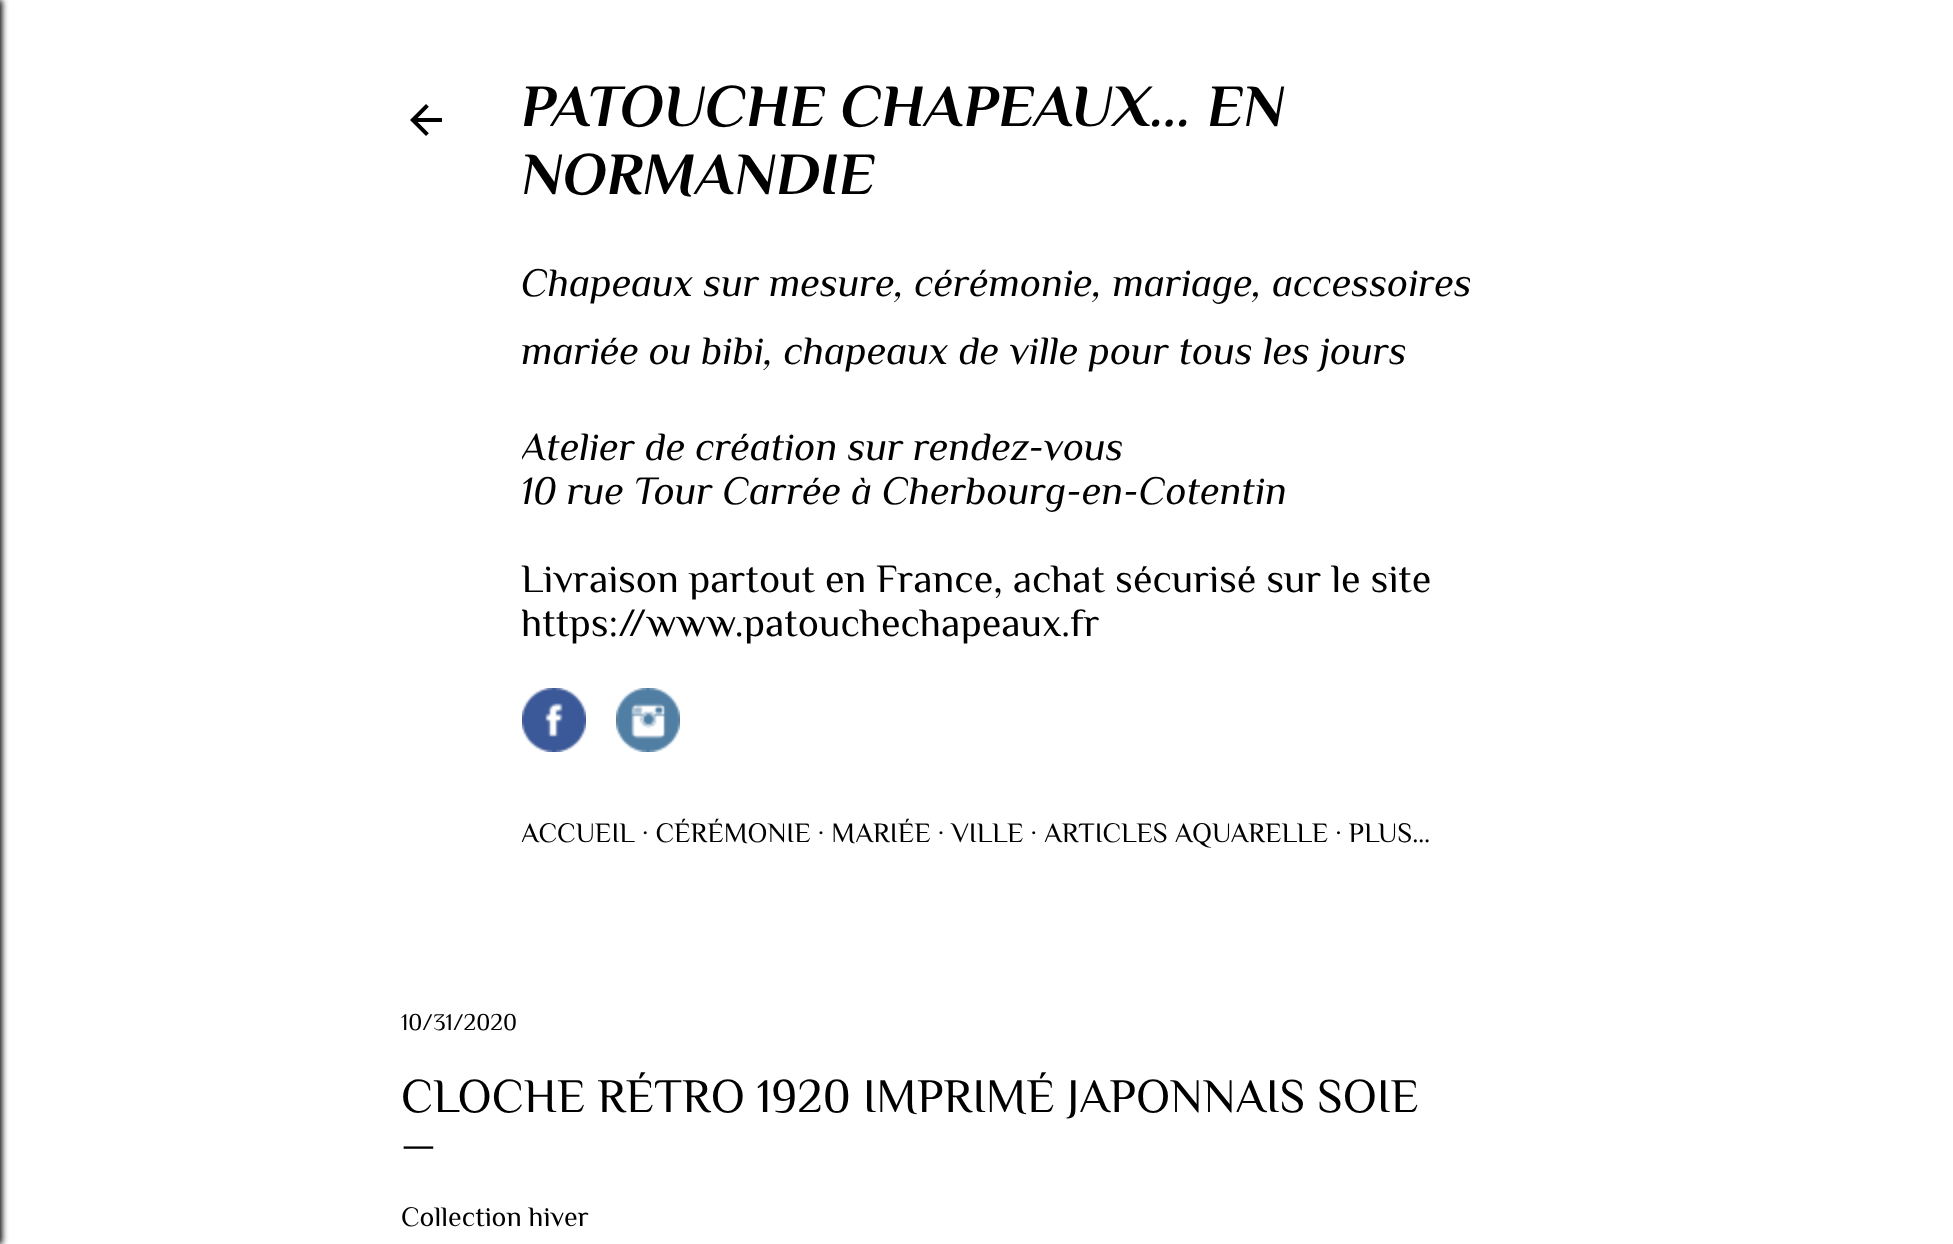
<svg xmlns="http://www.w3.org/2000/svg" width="1953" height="1244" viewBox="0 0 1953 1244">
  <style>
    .t1 { font: italic bold 60px Philosopher; fill: #000; }
    .t2 { font: italic 40px Philosopher; fill: #000; }
    .t3 { font: 40px Philosopher; fill: #000; }
    .t4 { font: 28px Philosopher; fill: #000; }
    .t5 { font: 24px Philosopher; fill: #000; }
    .t6 { font: 48px Philosopher; fill: #000; }
  </style>
  <defs>
    <clipPath id="clip1"><rect x="522" y="72" width="1032" height="788"/></clipPath>
  </defs>
  <rect width="100%" height="100%" fill="#fff"/>
  <rect x="-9" y="0" width="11" height="1244" fill="#000" filter="blur(3px)"/>
  <image x="410" y="104" width="32" height="32" href="images/1.png"/>
  <text x="521" y="126" class="t1">PATOUCHE CHAPEAUX... EN</text>
  <text x="521" y="194" class="t1">NORMANDIE</text>
  <text x="521" y="296" class="t2">Chapeaux sur mesure, cérémonie, mariage, accessoires</text>
  <text x="521" y="364" class="t2">mariée ou bibi, chapeaux de ville pour tous les jours</text>
  <g clip-path="url(#clip1)">
    <text x="521" y="460" class="t2">Atelier de création sur rendez-vous</text>
  </g>
  <text x="521" y="504" class="t2">10 rue Tour Carrée à Cherbourg-en-Cotentin</text>
  <text x="521" y="592" class="t3">Livraison partout en France, achat sécurisé sur le site</text>
  <g clip-path="url(#clip1)">
    <text x="521" y="636" class="t3">https://www.patouchechapeaux.fr</text>
  </g>
  <image x="522" y="688" width="64" height="64" href="images/2.png"/>
  <image x="616" y="688" width="64" height="64" href="images/3.png"/>
  <text x="521" y="842" class="t4">ACCUEIL · CÉRÉMONIE · MARIÉE · VILLE · ARTICLES AQUARELLE · PLUS…</text>
  <text x="401" y="1030" class="t5">10/31/2020</text>
  <text x="401" y="1112" class="t6">CLOCHE RÉTRO 1920 IMPRIMÉ JAPONNAIS SOIE</text>
  <text x="401" y="1158" class="t3">—</text>
  <text x="401" y="1226" class="t4">Collection hiver</text>
</svg>
